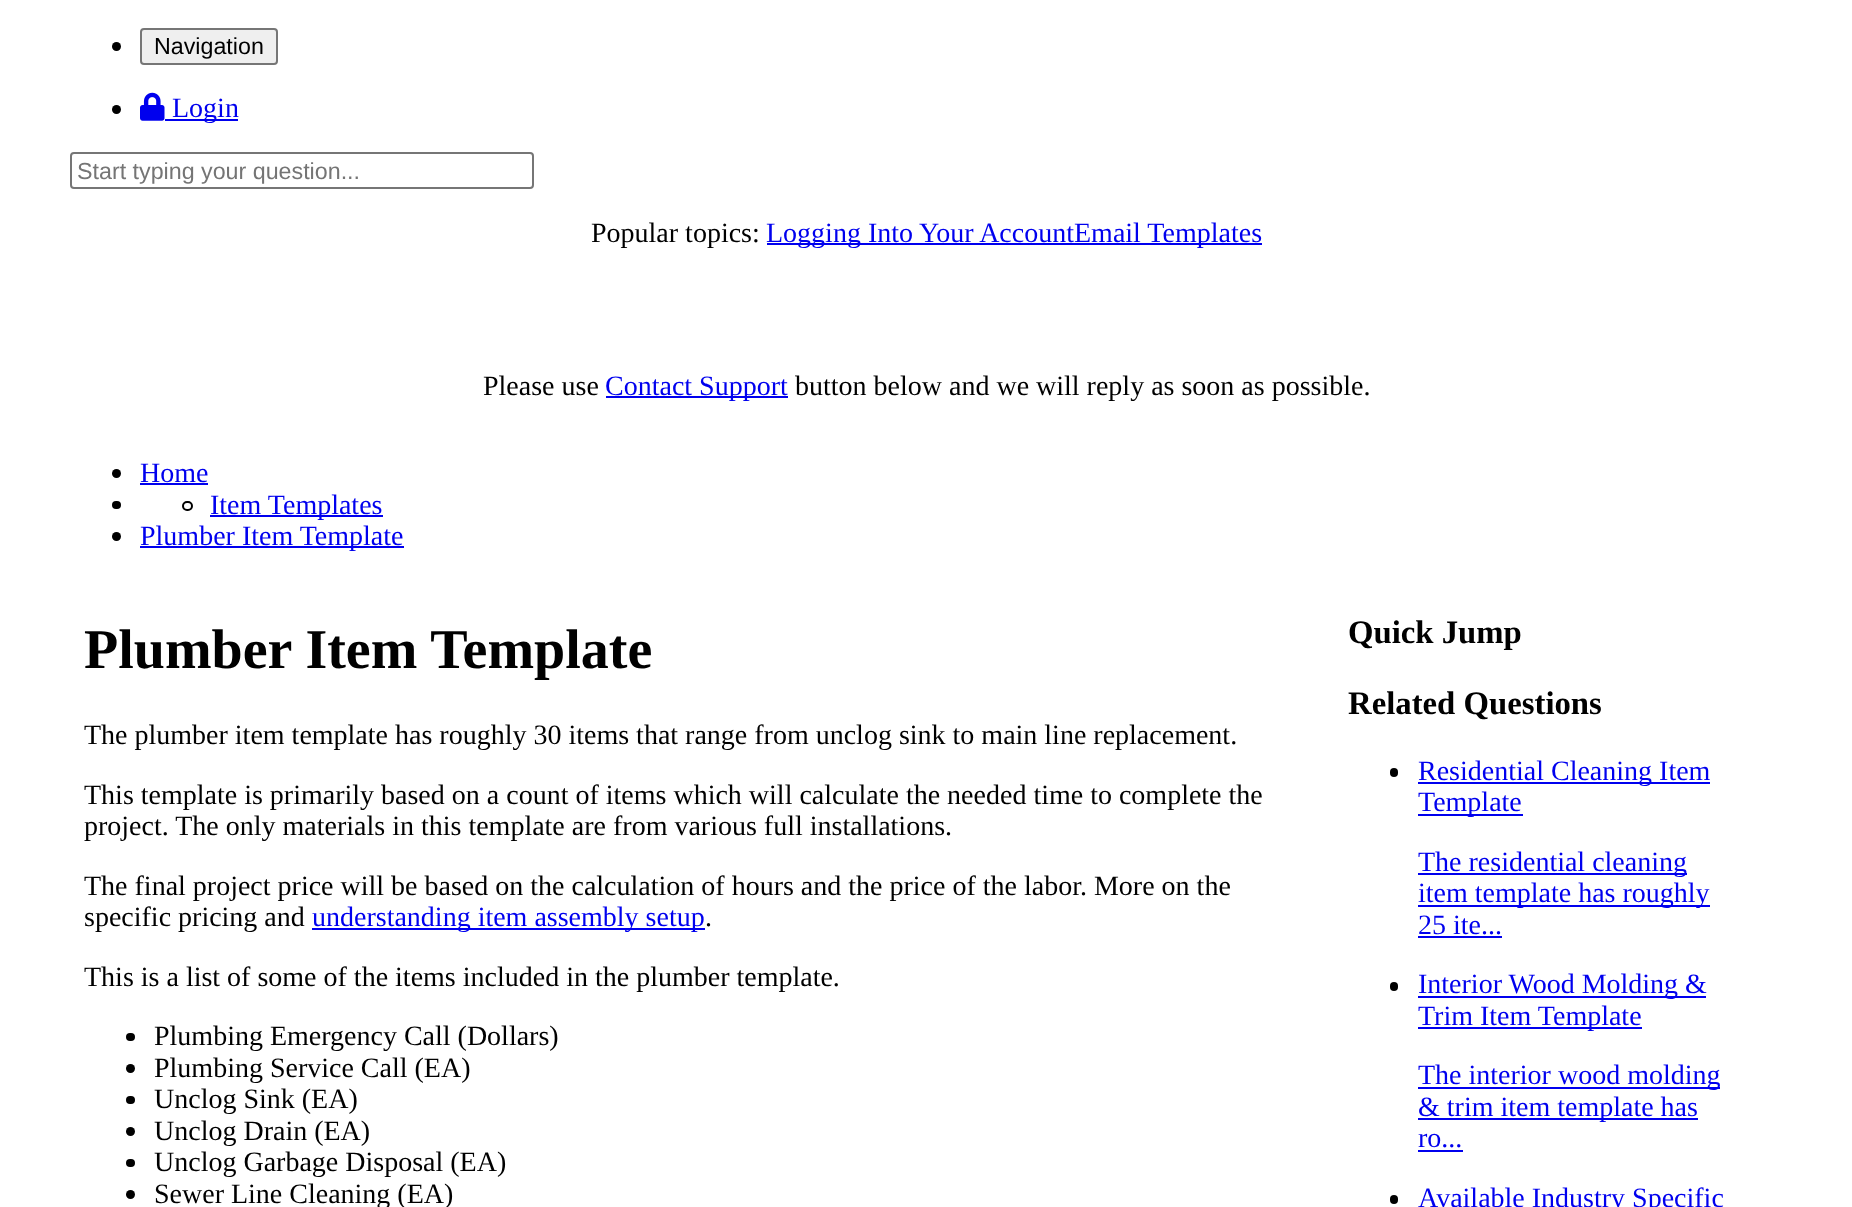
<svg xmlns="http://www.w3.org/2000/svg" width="1852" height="1207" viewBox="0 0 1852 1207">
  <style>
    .t1 { font: 23.25px Liberation Sans; fill: #000; }
    .t2 { font: 28px Liberation Serif; fill: #00e; }
    .t3 { font: 23.25px Liberation Sans; fill: #757575; }
    .t4 { font: 28px Liberation Serif; fill: #000; }
    .t5 { font: bold 56px Liberation Serif; fill: #000; }
    .t6 { font: bold 32.75px Liberation Serif; fill: #000; }
  </style>
  <rect width="100%" height="100%" fill="#fff"/>
  <circle cx="116.5" cy="46.5" r="4.5" fill="#000"/>
  <rect x="141" y="29" width="136" height="35" rx="3" fill="#efefef" stroke="#767676" stroke-width="2"/>
  <text x="154" y="54" class="t1">Navigation</text>
  <circle cx="116.5" cy="109.5" r="4.5" fill="#000"/>
  <image x="140" y="92" width="25" height="29" href="images/1.png"/>
  <rect x="165" y="119" width="73" height="2" fill="#00e"/>
  <text x="172" y="117" class="t2">Login</text>
  <rect x="71" y="153" width="462" height="35" rx="3" fill="none" stroke="#767676" stroke-width="2"/>
  <text x="77" y="179" class="t3">Start typing your question...</text>
  <text x="591" y="242" class="t4">Popular topics:</text>
  <rect x="767" y="243" width="495" height="2" fill="#00e"/>
  <text x="766" y="242" class="t2">Logging Into Your AccountEmail Templates</text>
  <text x="483" y="395" class="t4">Please use</text>
  <rect x="606" y="396" width="182" height="2" fill="#00e"/>
  <text x="605" y="395" class="t2">Contact Support</text>
  <text x="795" y="395" class="t4">button below and we will reply as soon as possible.</text>
  <circle cx="116.5" cy="473.5" r="4.5" fill="#000"/>
  <text x="140" y="482" class="t2">Home</text>
  <rect x="140" y="483" width="68" height="2" fill="#00e"/>
  <rect x="112" y="501" width="9" height="8" rx="4" fill="#000"/>
  <rect x="183" y="502" width="9" height="8" rx="4" fill="none" stroke="#000" stroke-width="2"/>
  <rect x="210" y="515" width="173" height="2" fill="#00e"/>
  <text x="210" y="514" class="t2">Item Templates</text>
  <circle cx="116.5" cy="536.5" r="4.5" fill="#000"/>
  <rect x="140" y="546" width="264" height="2" fill="#00e"/>
  <text x="140" y="545" class="t2">Plumber Item Template</text>
  <text x="84" y="668" class="t5">Plumber Item Template</text>
  <text x="84" y="744" class="t4">The plumber item template has roughly 30 items that range from unclog sink to main line replacement.</text>
  <text x="84" y="804" class="t4">This template is primarily based on a count of items which will calculate the needed time to complete the</text>
  <text x="84" y="835" class="t4">project. The only materials in this template are from various full installations.</text>
  <text x="84" y="895" class="t4">The final project price will be based on the calculation of hours and the price of the labor. More on the</text>
  <text x="84" y="926" class="t4">specific pricing and</text>
  <rect x="312" y="928" width="393" height="2" fill="#00e"/>
  <text x="312" y="926" class="t2">understanding item assembly setup</text>
  <text x="705" y="926" class="t4">.</text>
  <text x="84" y="986" class="t4">This is a list of some of the items included in the plumber template.</text>
  <rect x="126" y="1033" width="9" height="8" rx="4" fill="#000"/>
  <text x="154" y="1045" class="t4">Plumbing Emergency Call (Dollars)</text>
  <circle cx="130.5" cy="1068.5" r="4.5" fill="#000"/>
  <text x="154" y="1077" class="t4">Plumbing Service Call (EA)</text>
  <rect x="126" y="1096" width="9" height="8" rx="4" fill="#000"/>
  <text x="154" y="1108" class="t4">Unclog Sink (EA)</text>
  <circle cx="130.5" cy="1131.5" r="4.5" fill="#000"/>
  <text x="154" y="1140" class="t4">Unclog Drain (EA)</text>
  <rect x="126" y="1159" width="9" height="8" rx="4" fill="#000"/>
  <text x="154" y="1171" class="t4">Unclog Garbage Disposal (EA)</text>
  <circle cx="130.5" cy="1194.5" r="4.5" fill="#000"/>
  <text x="154" y="1203" class="t4">Sewer Line Cleaning (EA)</text>
  <text x="1348" y="643" class="t6">Quick Jump</text>
  <text x="1348" y="714" class="t6">Related Questions</text>
  <rect x="1390" y="768" width="8" height="9" rx="4" fill="#000"/>
  <rect x="1418" y="782" width="292" height="2" fill="#00e"/>
  <text x="1418" y="780" class="t2">Residential Cleaning Item</text>
  <rect x="1418" y="814" width="105" height="2" fill="#00e"/>
  <text x="1418" y="811" class="t2">Template</text>
  <rect x="1418" y="873" width="269" height="2" fill="#00e"/>
  <text x="1418" y="871" class="t2">The residential cleaning</text>
  <rect x="1418" y="905" width="292" height="2" fill="#00e"/>
  <text x="1418" y="902" class="t2">item template has roughly</text>
  <text x="1418" y="934" class="t2">25 ite...</text>
  <rect x="1418" y="936" width="84" height="2" fill="#00e"/>
  <rect x="1390" y="982" width="8" height="9" rx="4" fill="#000"/>
  <rect x="1418" y="996" width="288" height="2" fill="#00e"/>
  <text x="1418" y="993" class="t2">Interior Wood Molding &amp;</text>
  <rect x="1418" y="1027" width="224" height="2" fill="#00e"/>
  <text x="1418" y="1025" class="t2">Trim Item Template</text>
  <rect x="1418" y="1087" width="302" height="2" fill="#00e"/>
  <text x="1418" y="1084" class="t2">The interior wood molding</text>
  <rect x="1418" y="1118" width="280" height="2" fill="#00e"/>
  <text x="1418" y="1116" class="t2">&amp; trim item template has</text>
  <text x="1418" y="1147" class="t2">ro...</text>
  <rect x="1418" y="1150" width="45" height="2" fill="#00e"/>
  <rect x="1390" y="1195" width="8" height="9" rx="4" fill="#000"/>
  <text x="1418" y="1207" class="t2">Available Industry Specific</text>
</svg>
